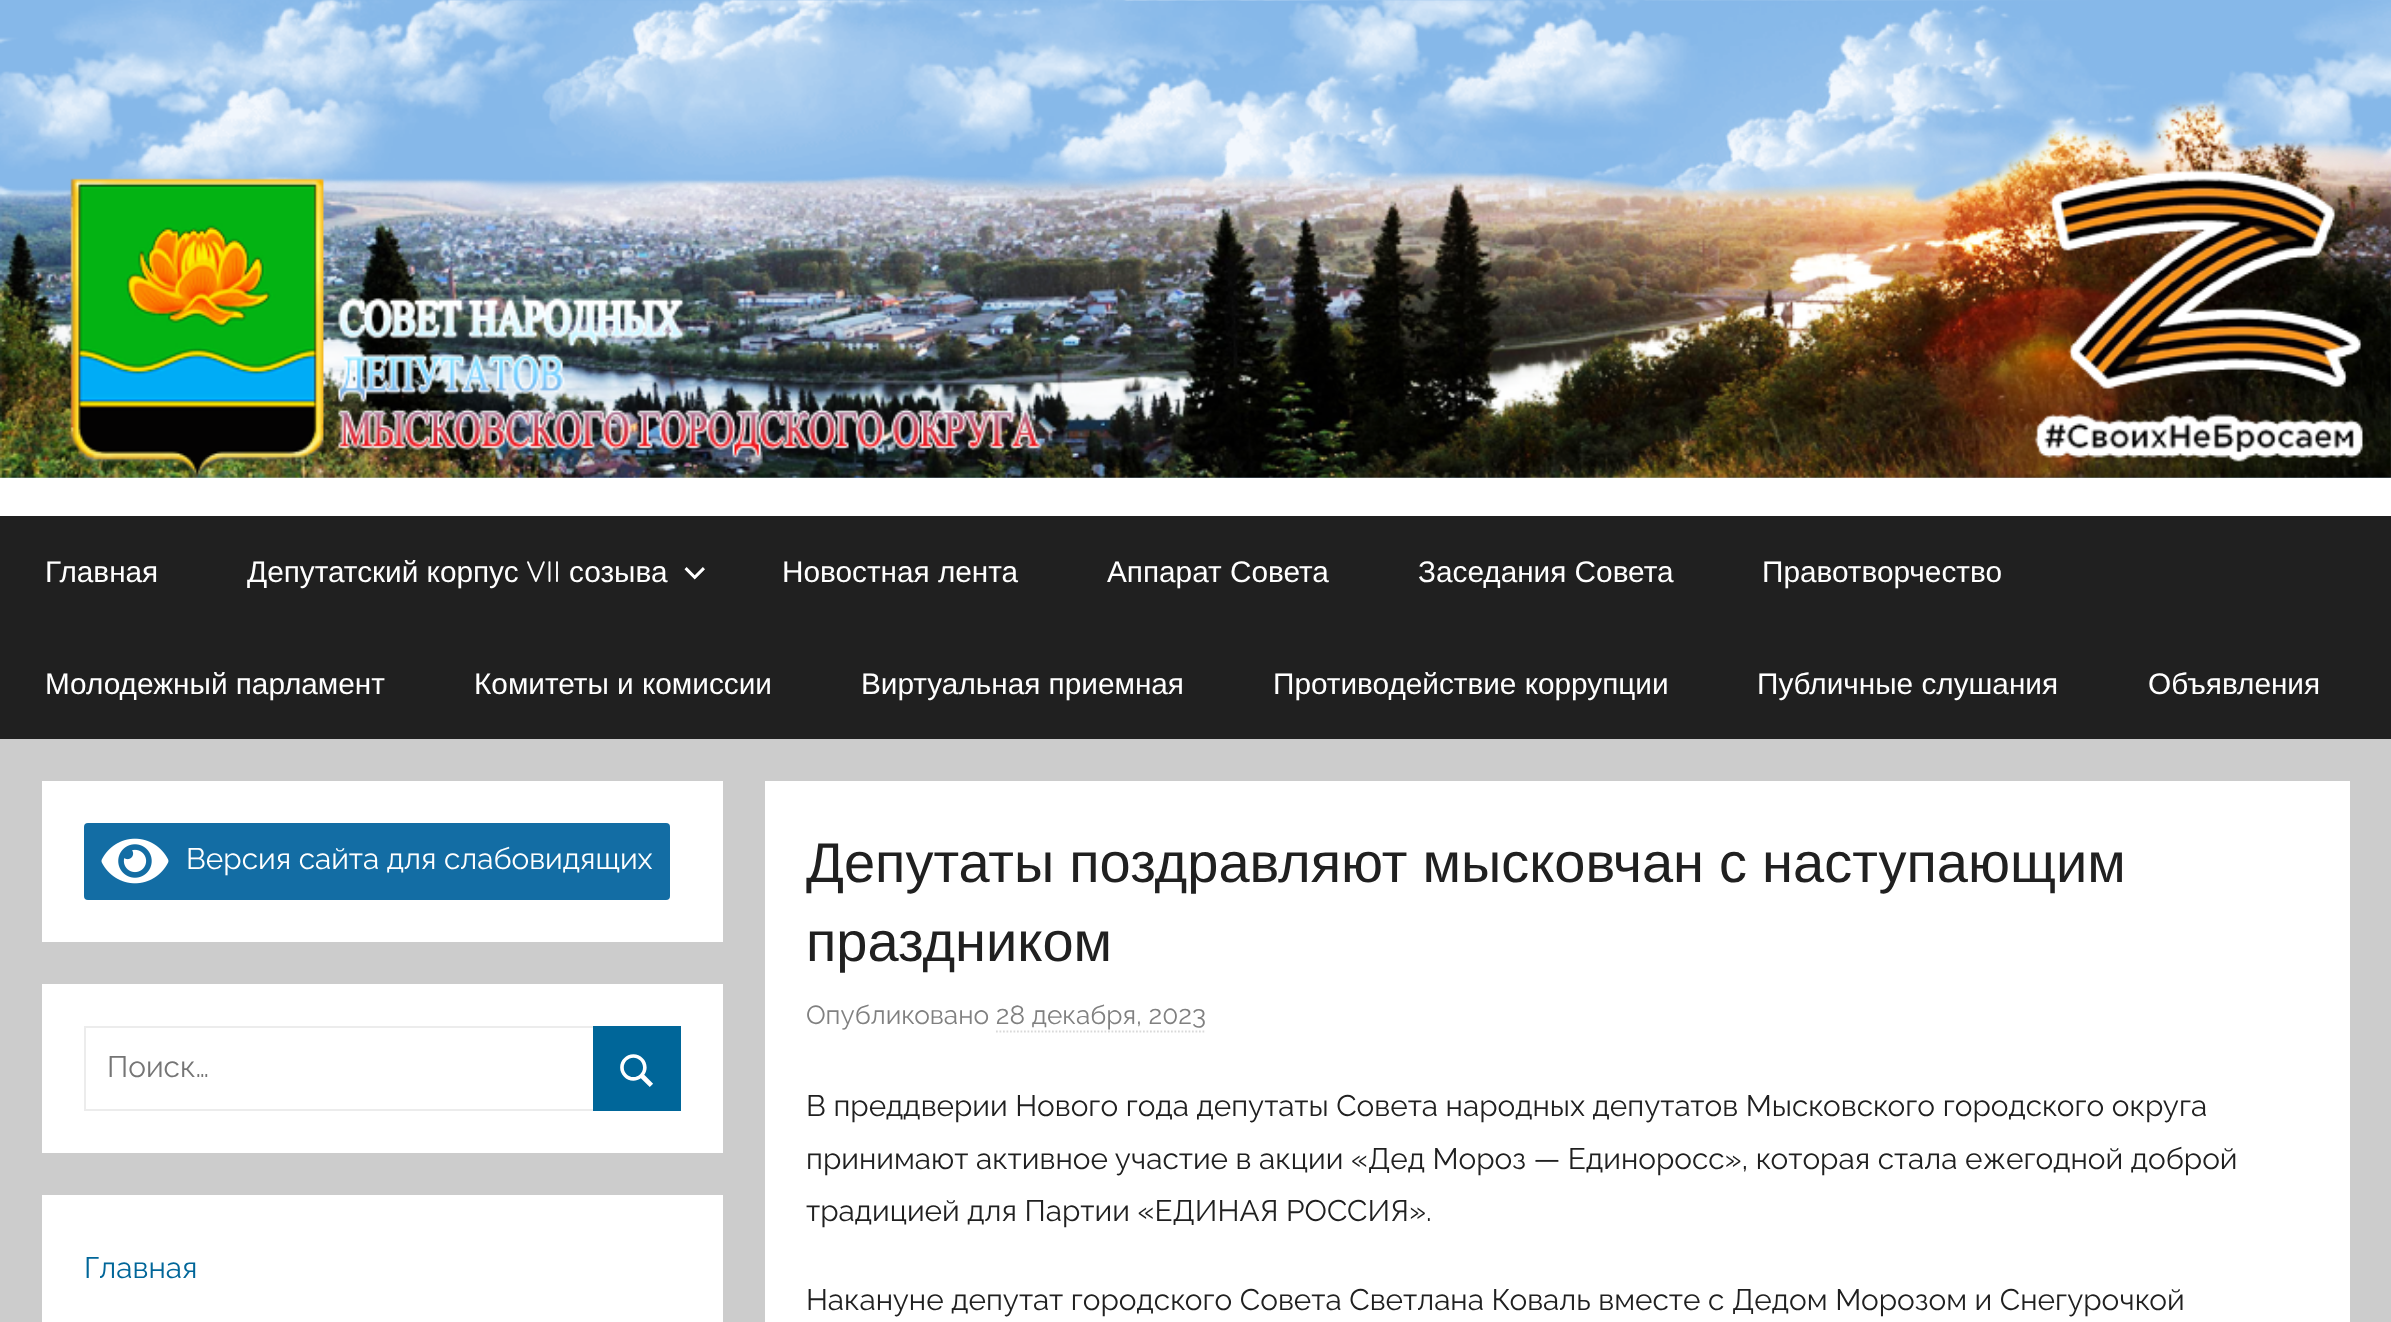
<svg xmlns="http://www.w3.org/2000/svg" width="2391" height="1322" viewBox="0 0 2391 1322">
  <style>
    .t1 { font: 29.75px Liberation Sans; fill: #fff; }
    .t2 { font: 29.75px Quicksand; fill: #fff; }
    .t3 { font: 29.75px Raleway; fill: #fff; }
    .t4 { font: 29.75px Raleway; fill: #757575; }
    .t5 { font: 29.75px Raleway; fill: #069; }
    .t6 { font: 56px Liberation Sans; fill: #202020; }
    .t7 { font: 26.25px Raleway; fill: #808080; }
    .t8 { font: 29.75px Raleway; fill: #202020; }
  </style>
  <rect width="100%" height="100%" fill="#ccc"/>
  <rect x="0" y="477" width="2391" height="39" fill="#fff"/>
  <image x="0" y="0" width="2391" height="478" href="images/1.png"/>
  <image x="0" y="37" width="2391" height="441" href="images/2.png"/>
  <rect x="0" y="516" width="2391" height="223" fill="#202020"/>
  <text x="45" y="582" class="t1">Главная</text>
  <text x="247" y="582" class="t1">Депутатский корпус</text>
  <text x="526" y="582" class="t2">VII</text>
  <text x="569" y="582" class="t1">созыва</text>
  <image x="684" y="567" width="21" height="13" href="images/3.png"/>
  <text x="782" y="582" class="t1">Новостная лента</text>
  <text x="1107" y="582" class="t1">Аппарат Совета</text>
  <text x="1418" y="582" class="t1">Заседания Совета</text>
  <text x="1762" y="582" class="t1">Правотворчество</text>
  <text x="45" y="694" class="t1">Молодежный парламент</text>
  <text x="474" y="694" class="t1">Комитеты и комиссии</text>
  <text x="861" y="694" class="t1">Виртуальная приемная</text>
  <text x="1273" y="694" class="t1">Противодействие коррупции</text>
  <text x="1757" y="694" class="t1">Публичные слушания</text>
  <text x="2148" y="694" class="t1">Объявления</text>
  <rect x="42" y="781" width="681" height="161" fill="#fff"/>
  <rect x="84" y="823" width="586" height="77" rx="4" fill="#136da4"/>
  <image x="101" y="838" width="68" height="46" href="images/4.png"/>
  <text x="186" y="869" class="t3">Версия сайта для слабовидящих</text>
  <rect x="42" y="984" width="681" height="169" fill="#fff"/>
  <rect x="85" y="1027" width="595" height="83" fill="none" stroke="#ececec" stroke-width="2"/>
  <text x="107" y="1077" class="t4">Поиск…</text>
  <rect x="593" y="1026" width="88" height="85" fill="#069"/>
  <image x="620" y="1054" width="33" height="33" href="images/5.png"/>
  <rect x="42" y="1195" width="681" height="127" fill="#fff"/>
  <text x="84" y="1278" class="t5">Главная</text>
  <rect x="765" y="781" width="1585" height="541" fill="#fff"/>
  <text x="806" y="882" word-spacing="-0.5" class="t6">Депутаты поздравляют мысковчан с наступающим</text>
  <text x="806" y="961" class="t6">праздником</text>
  <text x="806" y="1024" class="t7">Опубликовано 28 декабря, 2023</text>
  <path d="M996 1031.5H1206" fill="none" stroke="#d9d9d9" stroke-width="1.8" stroke-dasharray="1.75 1.75"/>
  <text x="806" y="1116" class="t8">В преддверии Нового года депутаты Совета народных депутатов Мысковского городского округа</text>
  <text x="806" y="1169" class="t8">принимают активное участие в акции «Дед Мороз — Единоросс», которая стала ежегодной доброй</text>
  <text x="806" y="1221" class="t8">традицией для Партии «ЕДИНАЯ РОССИЯ».</text>
  <text x="806" y="1310" class="t8">Накануне депутат городского Совета Светлана Коваль вместе с Дедом Морозом и Снегурочкой</text>
</svg>
